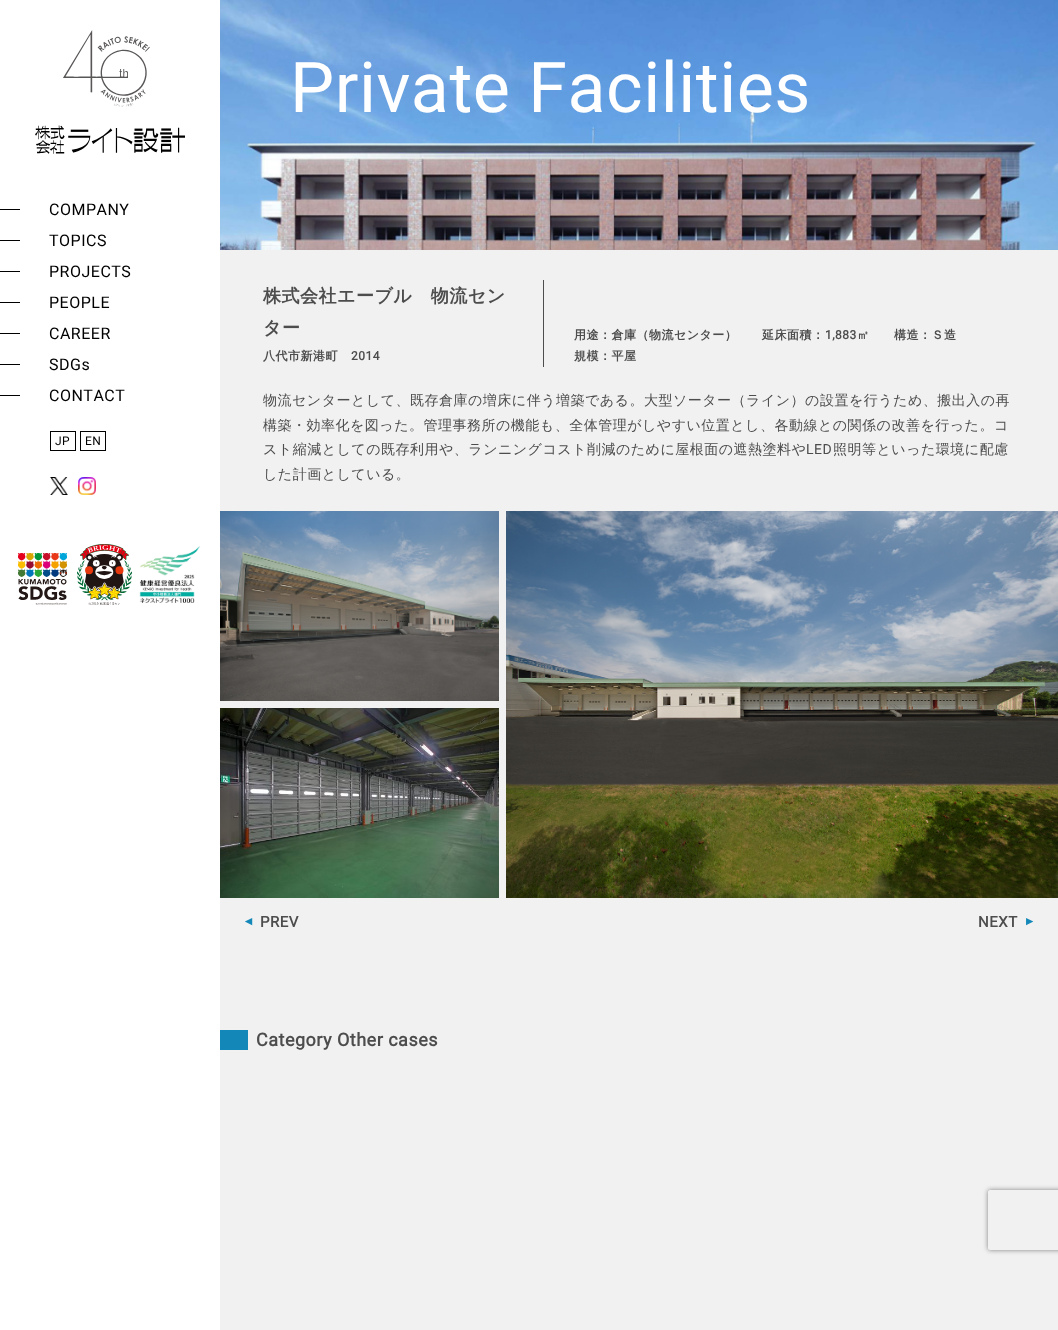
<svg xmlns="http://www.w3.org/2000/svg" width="1058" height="1330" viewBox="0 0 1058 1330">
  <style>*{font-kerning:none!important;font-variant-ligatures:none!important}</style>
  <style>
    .t1 { font: 16px Roboto; letter-spacing: 0.5px; fill: #000; }
    .t2 { font: 12px Roboto; letter-spacing: 0.5px; fill: #000; }
    .t3 { font: 70px Roboto; letter-spacing: 0.5px; fill: #fff; }
    .t4 { font: bold 18px WenQuanYi Zen Hei; letter-spacing: 0.5px; fill: #4d4d4d; }
    .t5 { font: bold 12px WenQuanYi Zen Hei; letter-spacing: 0.5px; fill: #4d4d4d; }
    .t6 { font: bold 12px Roboto; letter-spacing: 0.5px; fill: #4d4d4d; }
    .t7 { font: 500 14px WenQuanYi Zen Hei; letter-spacing: 0.5px; fill: #4d4d4d; }
    .t8 { font: 14px Roboto; letter-spacing: 0.5px; fill: #4d4d4d; }
    .t9 { font: bold 9px DejaVu Sans; letter-spacing: 0.5px; fill: #1388b8; }
    .t10 { font: bold 15px Roboto; letter-spacing: 0.5px; fill: #4d4d4d; }
    .t11 { font: bold 18px Roboto; letter-spacing: 0.5px; fill: #4d4d4d; }
  </style>
  <defs>
    <clipPath id="clip1"><path d="M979 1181H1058V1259H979ZM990 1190H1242C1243 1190 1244 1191 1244 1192V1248C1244 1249 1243 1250 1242 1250H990C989 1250 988 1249 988 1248V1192C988 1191 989 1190 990 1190Z" clip-rule="evenodd"/></clipPath>
  </defs>
  <rect width="100%" height="100%" fill="#f1f1f1"/>
  <rect x="0" y="0" width="220" height="1330" fill="#fff"/>
  <image x="35" y="30" width="150" height="124" href="images/1.png"/>
  <rect x="0" y="209" width="20" height="1" fill="#000"/>
  <text x="49" y="215" class="t1">COMPANY</text>
  <rect x="0" y="240" width="20" height="1" fill="#000"/>
  <text x="49" y="246" class="t1">TOPICS</text>
  <rect x="0" y="271" width="20" height="1" fill="#000"/>
  <text x="49" y="277" class="t1">PROJECTS</text>
  <rect x="0" y="302" width="20" height="1" fill="#000"/>
  <text x="49" y="308" class="t1">PEOPLE</text>
  <rect x="0" y="333" width="20" height="1" fill="#000"/>
  <text x="49" y="339" class="t1">CAREER</text>
  <rect x="0" y="364" width="20" height="1" fill="#000"/>
  <text x="49" y="370" class="t1">SDGs</text>
  <rect x="0" y="395" width="20" height="1" fill="#000"/>
  <text x="49" y="401" class="t1">CONTACT</text>
  <rect x="50.5" y="431.5" width="25" height="19" fill="none" stroke="#000"/>
  <text x="55" y="445" class="t2">JP</text>
  <rect x="80.5" y="431.5" width="25" height="19" fill="none" stroke="#000"/>
  <text x="85" y="445" class="t2">EN</text>
  <image x="50" y="477" width="18" height="18" href="images/2.png"/>
  <image x="78" y="477" width="18" height="18" href="images/3.png"/>
  <image x="18" y="553" width="49" height="52" href="images/4.png"/>
  <image x="77" y="544" width="55" height="61" href="images/5.png"/>
  <image x="139" y="546" width="62" height="57" href="images/6.png"/>
  <image x="220" y="0" width="838" height="250" href="images/7.png"/>
  <text x="290" y="112" class="t3">Private Facilities</text>
  <rect x="543" y="280" width="1" height="87" fill="#4d4d4d"/>
  <text x="263" y="302" class="t4">株式会社エーブル　物流セン</text>
  <text x="263" y="334" class="t4">ター</text>
  <text x="263" y="360" class="t5">八代市新港町</text>
  <text x="351" y="360" class="t6">2014</text>
  <text x="574" y="339" class="t5">用途：倉庫（物流センター）</text>
  <text x="762" y="339" class="t5">延床面積：</text>
  <text x="825" y="339" class="t6">1,883</text>
  <text x="857" y="339" class="t5">㎡</text>
  <text x="894" y="339" class="t5">構造：Ｓ造</text>
  <text x="574" y="360" class="t5">規模：平屋</text>
  <text x="263" y="405" class="t7">物流センターとして、既存倉庫の増床に伴う増築である。大型ソーター（ライン）の設置を行うため、搬出入の再</text>
  <text x="263" y="430" class="t7">構築・効率化を図った。管理事務所の機能も、全体管理がしやすい位置とし、各動線との関係の改善を行った。コ</text>
  <text x="263" y="454" class="t7">スト縮減としての既存利用や、ランニングコスト削減のために屋根面の遮熱塗料や</text>
  <text x="806" y="454" class="t8">LED</text>
  <text x="833" y="454" class="t7">照明等といった環境に配慮</text>
  <text x="263" y="479" class="t7">した計画としている。</text>
  <image x="220" y="511" width="279" height="190" href="images/8.png"/>
  <image x="220" y="708" width="279" height="190" href="images/9.png"/>
  <image x="506" y="511" width="552" height="387" href="images/10.png"/>
  <text x="245" y="924" class="t9">◀︎</text>
  <text x="260" y="927" class="t10">PREV</text>
  <text x="978" y="927" class="t10">NEXT</text>
  <text x="1026" y="924" class="t9">▶︎</text>
  <rect x="220" y="1030" width="28" height="20" fill="#1388b8"/>
  <text x="256" y="1046" class="t11">Category Other cases</text>
  <g clip-path="url(#clip1)">
    <rect x="988" y="1190" width="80" height="60" rx="2" fill="#808080" filter="blur(2.5px)"/>
  </g>
</svg>
